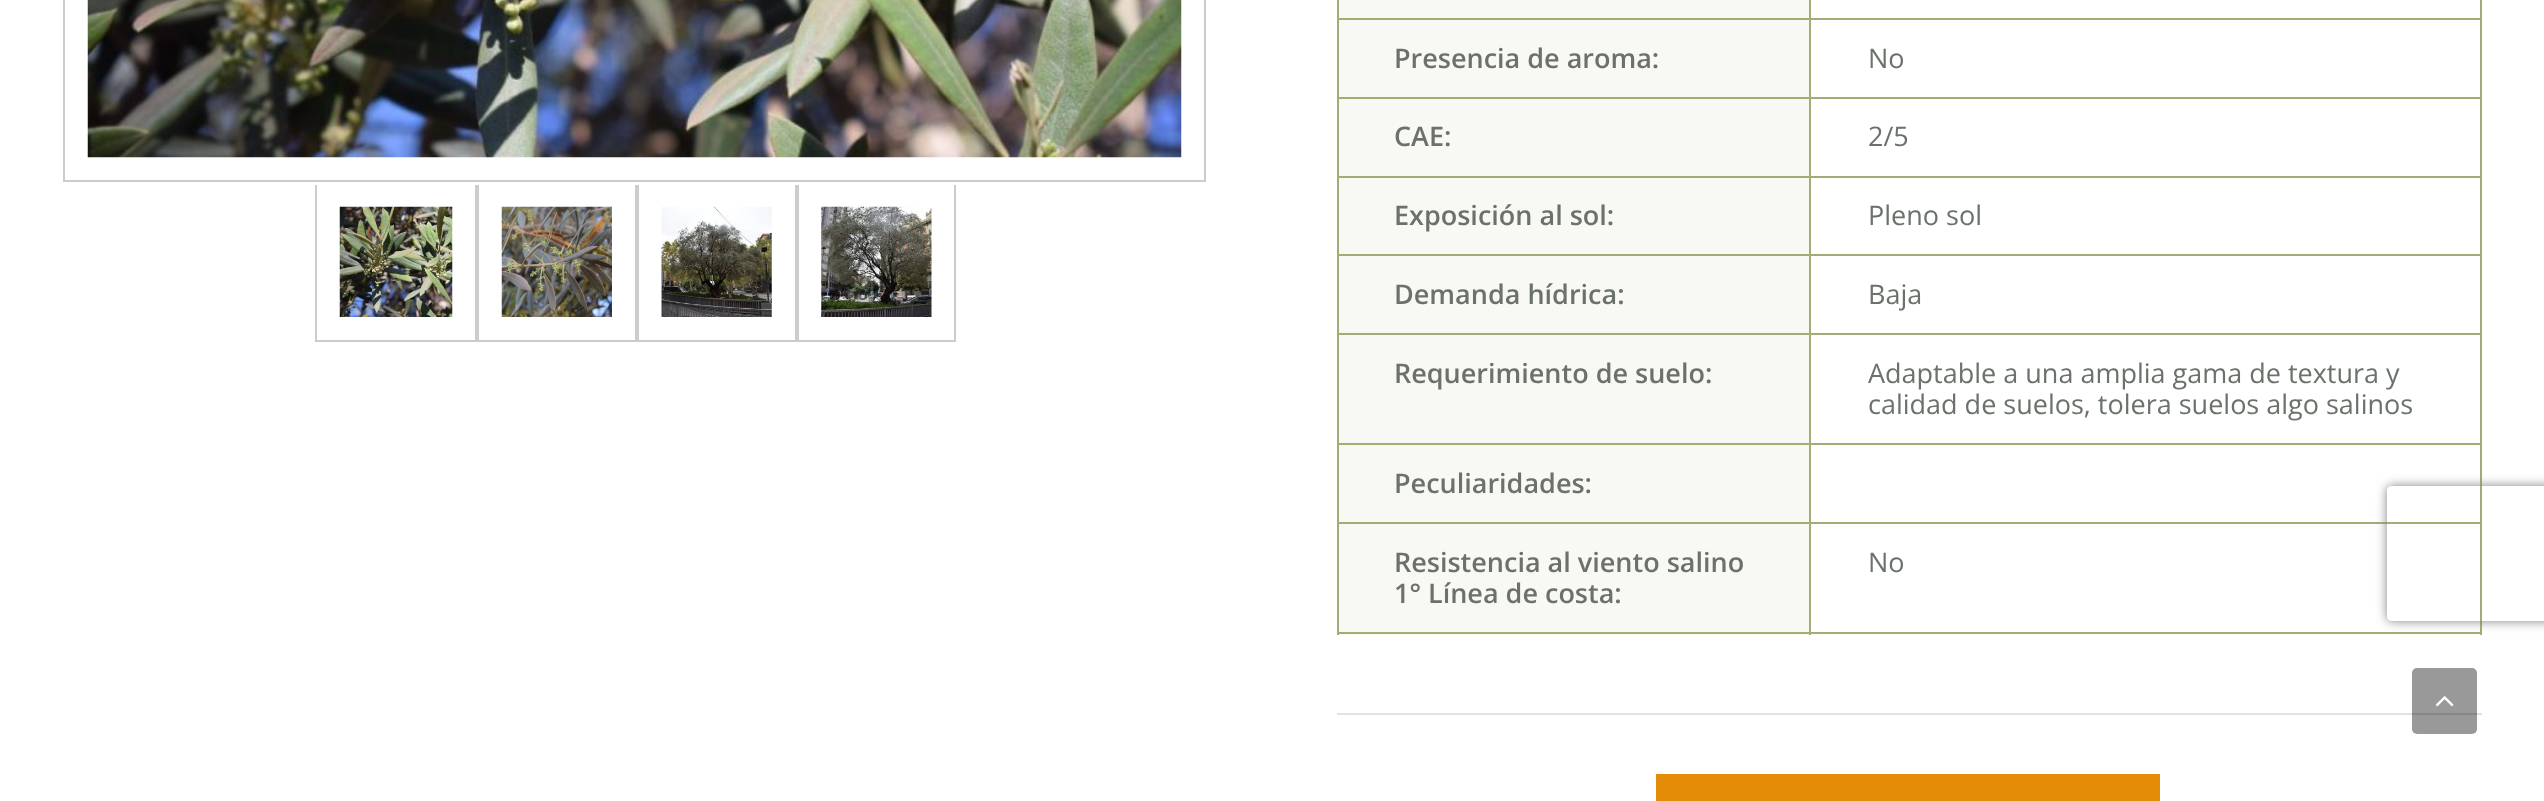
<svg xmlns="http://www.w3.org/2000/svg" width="2544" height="801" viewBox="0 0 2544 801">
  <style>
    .t1 { font: 600 27px Open Sans; fill: #6b716b; }
    .t2 { font: 27px Open Sans; fill: #6b716b; }
  </style>
  <defs>
    <clipPath id="clip1"><rect x="63" y="185" width="1145" height="157"/></clipPath>
    <clipPath id="clip2"><path d="M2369 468H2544V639H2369ZM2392 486H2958C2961 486 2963 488 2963 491V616C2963 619 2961 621 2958 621H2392C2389 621 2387 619 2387 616V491C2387 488 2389 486 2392 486Z" clip-rule="evenodd"/></clipPath>
  </defs>
  <rect width="100%" height="100%" fill="#fff"/>
  <rect x="64" y="-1" width="1141" height="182" fill="none" stroke="#ccc" stroke-width="2"/>
  <image x="87" y="0" width="1095" height="158" href="images/1.png"/>
  <g clip-path="url(#clip1)">
    <rect x="316" y="183" width="160" height="158" fill="none" stroke="#ccc" stroke-width="2"/>
  </g>
  <image x="339" y="206" width="114" height="111" href="images/2.png"/>
  <g clip-path="url(#clip1)">
    <rect x="478" y="183" width="158" height="158" fill="none" stroke="#ccc" stroke-width="2"/>
  </g>
  <image x="501" y="206" width="111" height="111" href="images/3.png"/>
  <g clip-path="url(#clip1)">
    <rect x="638" y="183" width="158" height="158" fill="none" stroke="#ccc" stroke-width="2"/>
  </g>
  <image x="661" y="206" width="111" height="111" href="images/4.png"/>
  <g clip-path="url(#clip1)">
    <rect x="798" y="183" width="157" height="158" fill="none" stroke="#ccc" stroke-width="2"/>
  </g>
  <image x="821" y="206" width="111" height="111" href="images/5.png"/>
  <rect x="1339" y="0" width="470" height="18" fill="#f8f8f4"/>
  <rect x="1809" y="18" width="673" height="2" fill="#a3ac75"/>
  <rect x="1809" y="97" width="673" height="2" fill="#a3ac75"/>
  <rect x="1809" y="176" width="673" height="2" fill="#a3ac75"/>
  <rect x="1339" y="178" width="470" height="155" fill="#f8f8f4"/>
  <rect x="1809" y="254" width="673" height="2" fill="#a3ac75"/>
  <rect x="1809" y="333" width="673" height="2" fill="#a3ac75"/>
  <rect x="1339" y="335" width="470" height="187" fill="#f8f8f4"/>
  <rect x="1809" y="443" width="673" height="2" fill="#a3ac75"/>
  <rect x="1809" y="522" width="673" height="2" fill="#a3ac75"/>
  <rect x="2480" y="522" width="2" height="113" fill="#a3ac75"/>
  <rect x="1809" y="632" width="673" height="2" fill="#a3ac75"/>
  <rect x="1809" y="522" width="2" height="113" fill="#a3ac75"/>
  <rect x="1337" y="522" width="474" height="2" fill="#a3ac75"/>
  <rect x="1809" y="443" width="2" height="81" fill="#a3ac75"/>
  <rect x="1337" y="443" width="474" height="2" fill="#a3ac75"/>
  <rect x="1809" y="333" width="2" height="113" fill="#a3ac75"/>
  <rect x="1337" y="333" width="474" height="2" fill="#a3ac75"/>
  <rect x="1809" y="254" width="2" height="81" fill="#a3ac75"/>
  <rect x="1337" y="254" width="474" height="2" fill="#a3ac75"/>
  <rect x="1809" y="176" width="2" height="81" fill="#a3ac75"/>
  <rect x="1337" y="176" width="474" height="2" fill="#a3ac75"/>
  <rect x="1809" y="97" width="2" height="81" fill="#a3ac75"/>
  <rect x="1337" y="97" width="474" height="2" fill="#a3ac75"/>
  <rect x="1809" y="18" width="2" height="81" fill="#a3ac75"/>
  <rect x="1337" y="18" width="474" height="2" fill="#a3ac75"/>
  <rect x="1809" y="0" width="2" height="20" fill="#a3ac75"/>
  <rect x="1339" y="20" width="470" height="77" fill="#f8f8f4"/>
  <rect x="1339" y="524" width="470" height="111" fill="#f8f8f4"/>
  <rect x="1337" y="632" width="474" height="2" fill="#a3ac75"/>
  <rect x="1337" y="522" width="2" height="113" fill="#a3ac75"/>
  <rect x="1337" y="443" width="2" height="81" fill="#a3ac75"/>
  <rect x="1337" y="333" width="2" height="113" fill="#a3ac75"/>
  <rect x="1337" y="254" width="2" height="81" fill="#a3ac75"/>
  <rect x="1337" y="176" width="2" height="81" fill="#a3ac75"/>
  <rect x="1337" y="97" width="2" height="81" fill="#a3ac75"/>
  <rect x="1337" y="0" width="2" height="99" fill="#a3ac75"/>
  <text x="1394" y="68" class="t1">Presencia de aroma:</text>
  <rect x="2480" y="443" width="2" height="81" fill="#a3ac75"/>
  <rect x="2480" y="333" width="2" height="113" fill="#a3ac75"/>
  <rect x="2480" y="254" width="2" height="81" fill="#a3ac75"/>
  <rect x="2480" y="176" width="2" height="81" fill="#a3ac75"/>
  <rect x="2480" y="97" width="2" height="81" fill="#a3ac75"/>
  <rect x="2480" y="0" width="2" height="99" fill="#a3ac75"/>
  <text x="1868" y="68" class="t2">No</text>
  <rect x="1339" y="99" width="470" height="77" fill="#f8f8f4"/>
  <text x="1394" y="146" class="t1">CAE:</text>
  <text x="1868" y="146" class="t2">2/5</text>
  <text x="1394" y="225" class="t1">Exposición al sol:</text>
  <text x="1868" y="225" class="t2">Pleno sol</text>
  <text x="1394" y="304" class="t1">Demanda hídrica:</text>
  <text x="1868" y="304" class="t2">Baja</text>
  <text x="1394" y="383" class="t1">Requerimiento de suelo:</text>
  <text x="1868" y="383" class="t2">Adaptable a una amplia gama de textura y</text>
  <text x="1868" y="414" class="t2">calidad de suelos, tolera suelos algo salinos</text>
  <text x="1394" y="493" class="t1">Peculiaridades:</text>
  <text x="1394" y="572" class="t1">Resistencia al viento salino</text>
  <text x="1394" y="603" class="t1">1° Línea de costa:</text>
  <text x="1868" y="572" class="t2">No</text>
  <rect x="1337" y="713" width="1145" height="2" fill="#e2e2e2"/>
  <rect x="1656" y="774" width="504" height="27" fill="#e38b06"/>
  <g clip-path="url(#clip2)">
    <rect x="2387" y="486" width="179" height="135" rx="5" fill="#808080" filter="blur(5.5px)"/>
  </g>
  <rect x="2412" y="668" width="65" height="66" rx="5" fill="#00000066"/>
  <image x="2435" y="696" width="19" height="11" href="images/6.png"/>
</svg>
